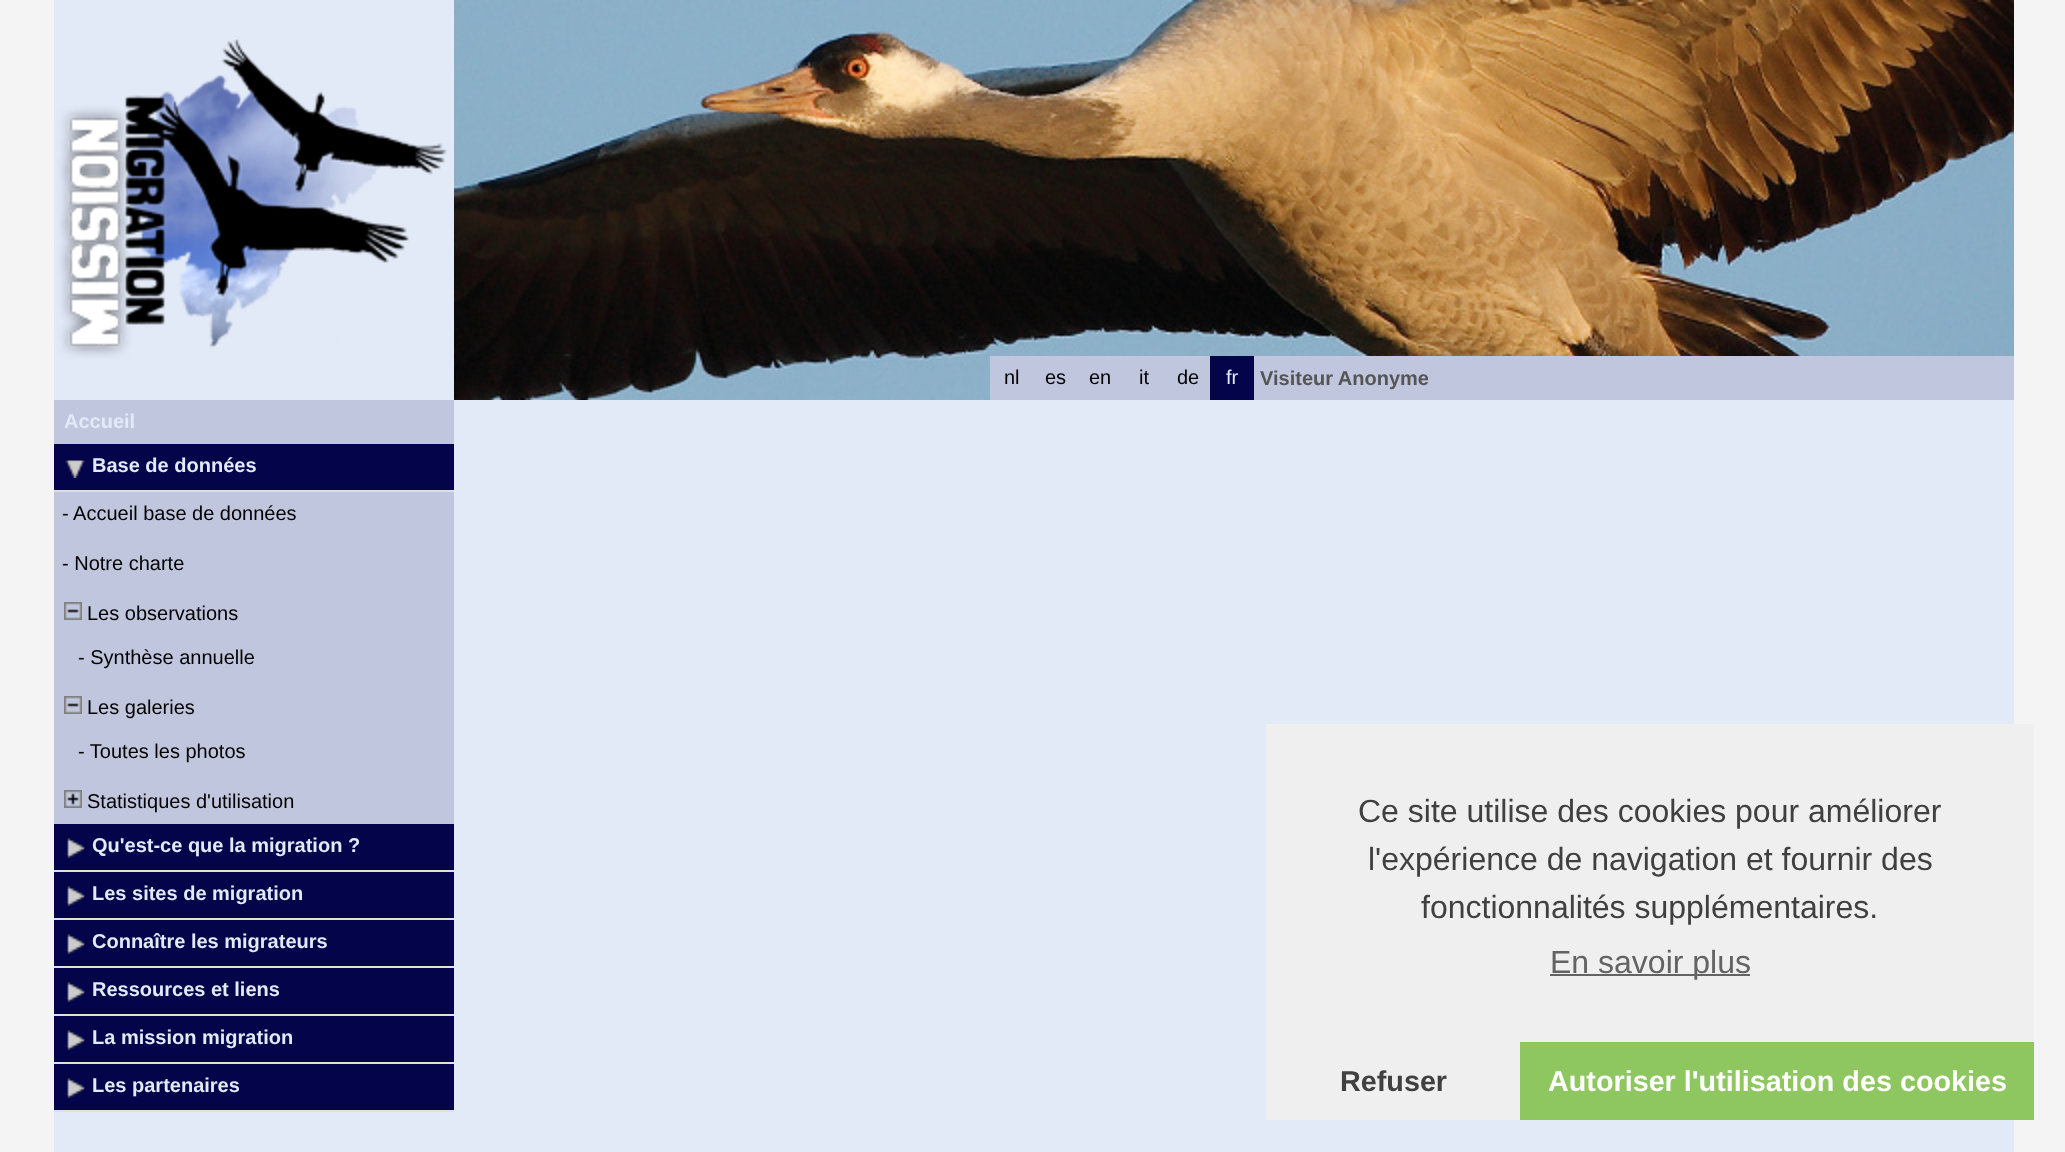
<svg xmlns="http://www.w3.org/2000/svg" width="2065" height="1152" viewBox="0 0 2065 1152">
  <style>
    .t1 { font: 20px Liberation Sans; fill: #000; }
    .t2 { font: 20px Liberation Sans; fill: #e2e9f7; }
    .t3 { font: bold 20px Liberation Sans; fill: #555; }
    .t4 { font: bold 20px Liberation Sans; fill: #e2e9f7; }
    .t5 { font: 32px Liberation Sans; fill: #404040; }
    .t6 { font: 32px Liberation Sans; fill: #636363; }
    .t7 { font: bold 28.75px Liberation Sans; fill: #404040; }
    .t8 { font: bold 28.75px Liberation Sans; fill: #fff; }
  </style>
  <rect width="100%" height="100%" fill="#f4f4f4"/>
  <image x="54" y="0" width="400" height="400" href="images/1.png"/>
  <image x="454" y="0" width="1560" height="400" href="images/2.png"/>
  <rect x="990" y="356" width="220" height="44" fill="#c0c6dd"/>
  <text x="1004" y="384" class="t1">nl</text>
  <text x="1045" y="384" class="t1">es</text>
  <text x="1089" y="384" class="t1">en</text>
  <text x="1139" y="384" class="t1">it</text>
  <text x="1177" y="384" class="t1">de</text>
  <rect x="1210" y="356" width="44" height="44" fill="#04044b"/>
  <text x="1226" y="384" class="t2">fr</text>
  <rect x="1254" y="356" width="760" height="44" fill="#c0c6dd"/>
  <text x="1260" y="385" class="t3">Visiteur Anonyme</text>
  <rect x="54" y="400" width="400" height="44" fill="#c0c6dd"/>
  <text x="64" y="428" class="t4">Accueil</text>
  <rect x="54" y="444" width="400" height="46" fill="#04044b"/>
  <rect x="54" y="490" width="400" height="2" fill="#e0e0e0"/>
  <image x="65" y="460" width="20" height="18" href="images/3.png"/>
  <text x="92" y="472" class="t4">Base de données</text>
  <rect x="54" y="492" width="400" height="332" fill="#c0c6dd"/>
  <text x="62" y="520" class="t1">- Accueil base de données</text>
  <text x="62" y="570" class="t1">- Notre charte</text>
  <image x="64" y="602" width="18" height="18" href="images/4.png"/>
  <text x="87" y="620" class="t1">Les observations</text>
  <text x="78" y="664" class="t1">- Synthèse annuelle</text>
  <image x="64" y="696" width="18" height="18" href="images/4.png"/>
  <text x="87" y="714" class="t1">Les galeries</text>
  <text x="78" y="758" class="t1">- Toutes les photos</text>
  <image x="64" y="790" width="18" height="18" href="images/5.png"/>
  <text x="87" y="808" class="t1">Statistiques d'utilisation</text>
  <rect x="54" y="824" width="400" height="46" fill="#04044b"/>
  <rect x="54" y="870" width="400" height="2" fill="#e0e0e0"/>
  <image x="67" y="838" width="18" height="20" href="images/6.png"/>
  <text x="92" y="852" class="t4">Qu'est-ce que la migration ?</text>
  <rect x="54" y="872" width="400" height="46" fill="#04044b"/>
  <rect x="54" y="918" width="400" height="2" fill="#e0e0e0"/>
  <image x="67" y="886" width="18" height="20" href="images/6.png"/>
  <text x="92" y="900" class="t4">Les sites de migration</text>
  <rect x="54" y="920" width="400" height="46" fill="#04044b"/>
  <rect x="54" y="966" width="400" height="2" fill="#e0e0e0"/>
  <image x="67" y="934" width="18" height="20" href="images/6.png"/>
  <text x="92" y="948" class="t4">Connaître les migrateurs</text>
  <rect x="54" y="968" width="400" height="46" fill="#04044b"/>
  <rect x="54" y="1014" width="400" height="2" fill="#e0e0e0"/>
  <image x="67" y="982" width="18" height="20" href="images/6.png"/>
  <text x="92" y="996" class="t4">Ressources et liens</text>
  <rect x="54" y="1016" width="400" height="46" fill="#04044b"/>
  <rect x="54" y="1062" width="400" height="2" fill="#e0e0e0"/>
  <image x="67" y="1030" width="18" height="20" href="images/6.png"/>
  <text x="92" y="1044" class="t4">La mission migration</text>
  <rect x="54" y="1064" width="400" height="46" fill="#04044b"/>
  <rect x="54" y="1110" width="400" height="2" fill="#e0e0e0"/>
  <image x="67" y="1078" width="18" height="20" href="images/6.png"/>
  <text x="92" y="1092" class="t4">Les partenaires</text>
  <rect x="454" y="400" width="1560" height="712" fill="#e2e9f7"/>
  <rect x="54" y="1112" width="1960" height="40" fill="#e2e9f7"/>
  <rect x="1266" y="724" width="768" height="396" fill="#efefef"/>
  <text x="1358" y="822" class="t5">Ce site utilise des cookies pour améliorer</text>
  <text x="1368" y="870" class="t5">l'expérience de navigation et fournir des</text>
  <text x="1421" y="918" class="t5">fonctionnalités supplémentaires.</text>
  <rect x="1550" y="974" width="200" height="2" fill="#636363"/>
  <text x="1550" y="973" class="t6">En savoir plus</text>
  <text x="1340" y="1091" class="t7">Refuser</text>
  <rect x="1520" y="1042" width="514" height="78" fill="#8ec760"/>
  <text x="1548" y="1091" class="t8">Autoriser l'utilisation des cookies</text>
</svg>
